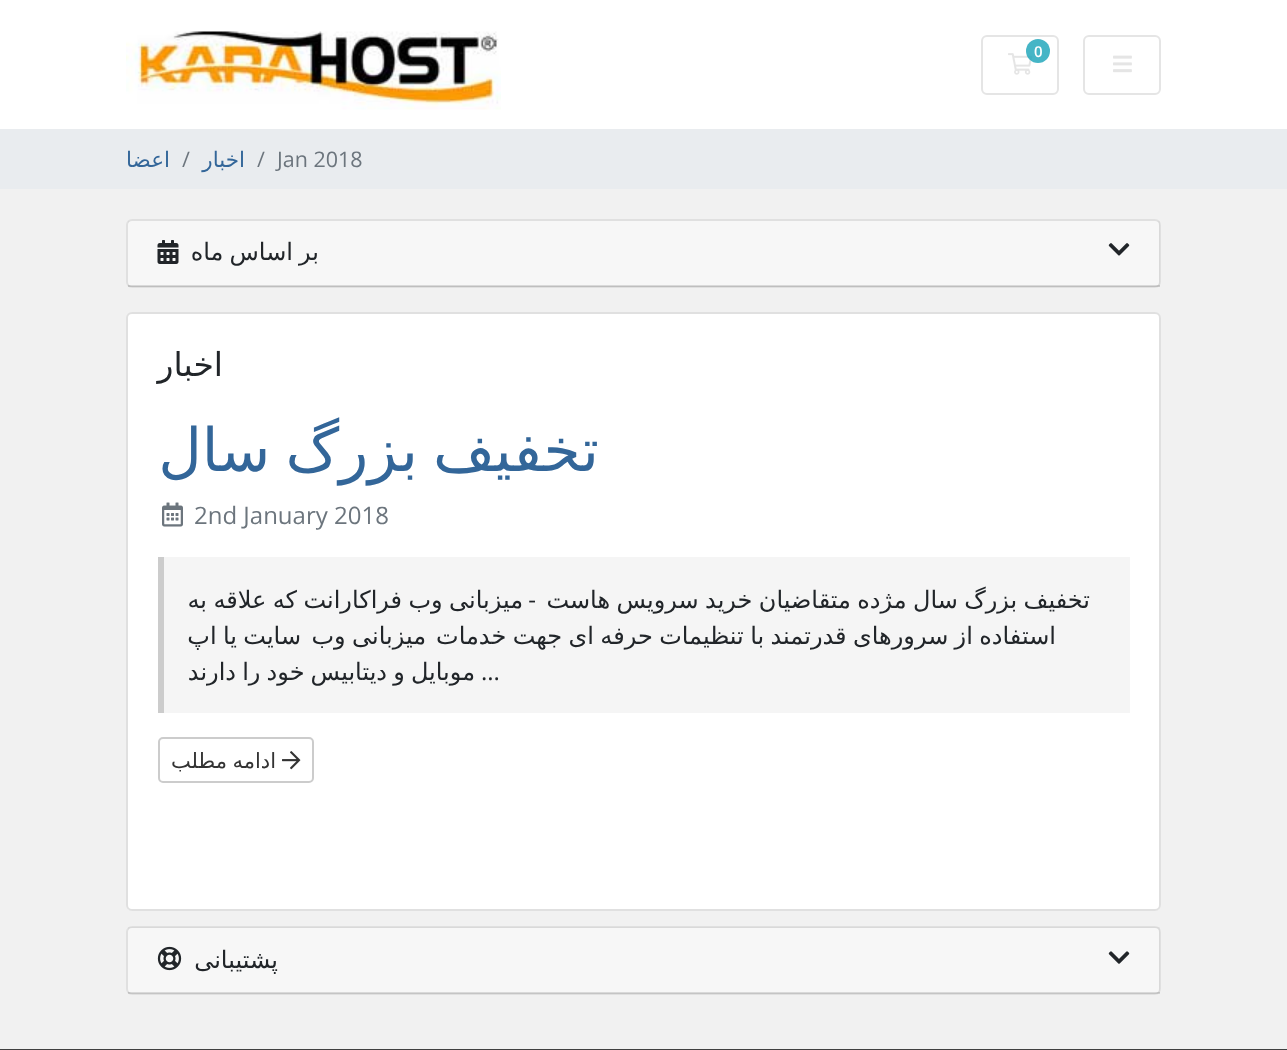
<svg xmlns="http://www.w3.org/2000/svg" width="1287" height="1050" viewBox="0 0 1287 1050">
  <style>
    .t1 { font: 600 15px Open Sans; fill: #fff; }
    .t2 { font: 21.5px Open Sans; fill: #6c757d; }
    .t3 { font: 21.5px DejaVu Sans; direction: rtl; fill: #369; }
    .t4 { font: 24px DejaVu Sans; direction: rtl; fill: #212529; }
    .t5 { font: 33px DejaVu Sans; direction: rtl; fill: #212529; }
    .t6 { font: 60px DejaVu Sans; direction: rtl; fill: #369; }
    .t7 { font: 24px Open Sans; fill: #6c757d; }
    .t8 { font: 24px Open Sans; direction: rtl; fill: #212529; }
    .t9 { font: 24px Open Sans; fill: #212529; }
    .t10 { font: 21px DejaVu Sans; direction: rtl; fill: #333; }
  </style>
  <rect width="100%" height="100%" fill="#f1f1f1"/>
  <rect x="0" y="0" width="1287" height="129" fill="#fff"/>
  <rect x="1084" y="36" width="76" height="58" rx="5" fill="none" stroke="#e5e5e5" stroke-width="2"/>
  <image x="1113" y="55" width="19" height="18" href="images/1.png"/>
  <rect x="982" y="36" width="76" height="58" rx="5" fill="none" stroke="#e5e5e5" stroke-width="2"/>
  <image x="1008" y="53" width="25" height="22" href="images/2.png"/>
  <circle cx="1038" cy="51" r="12" fill="#17a2b8cc"/>
  <text x="1034" y="57" class="t1">0</text>
  <image x="126" y="31" width="375" height="79" href="images/3.png"/>
  <rect x="0" y="129" width="1287" height="60" fill="#e9ecef"/>
  <text x="277" y="167" class="t2">Jan 2018</text>
  <text x="257" y="167" class="t2">/</text>
  <text x="245" y="167" class="t3">اخبار</text>
  <text x="182" y="167" class="t2">/</text>
  <text x="170" y="167" class="t3">اعضا</text>
  <rect x="126" y="219" width="1035" height="69" rx="6" fill="#fff"/>
  <rect x="127" y="220" width="1033" height="67" rx="5" fill="none" stroke="#0000001f" stroke-width="2"/>
  <rect x="128" y="221" width="1032" height="66" fill="#00000008"/>
  <rect x="128" y="285" width="1032" height="2" fill="#0000001f"/>
  <image x="1108" y="243" width="22" height="13" href="images/4.png"/>
  <text x="319" y="260" word-spacing="-1.5" class="t4">بر اساس ماه</text>
  <image x="157" y="240" width="22" height="24" href="images/5.png"/>
  <rect x="126" y="312" width="1035" height="599" rx="6" fill="#fff"/>
  <rect x="127" y="313" width="1033" height="597" rx="5" fill="none" stroke="#0000001f" stroke-width="2"/>
  <text x="223" y="376" class="t5">اخبار</text>
  <text x="599" y="471" word-spacing="-4" class="t6">تخفیف بزرگ سال</text>
  <text x="194" y="524" class="t7">2nd January 2018</text>
  <image x="162" y="502" width="21" height="25" href="images/6.png"/>
  <rect x="164" y="557" width="966" height="156" fill="#f5f5f5"/>
  <rect x="158" y="557" width="6" height="156" fill="#ccc"/>
  <text x="1090" y="608" word-spacing="-1.25" class="t4">تخفیف بزرگ سال مژده متقاضیان خرید سرویس هاست</text>
  <text x="536" y="608" class="t8">-</text>
  <text x="523" y="608" word-spacing="-1.25" class="t4">میزبانی وب فراکارانت که علاقه به</text>
  <text x="1056" y="644" word-spacing="-1.25" class="t4">استفاده از سرورهای قدرتمند با تنظیمات حرفه ای جهت خدمات</text>
  <text x="426" y="644" word-spacing="-1.25" class="t4">میزبانی وب</text>
  <text x="301" y="644" word-spacing="-1.25" class="t4">سایت یا اپ</text>
  <text x="481" y="680" class="t9">...</text>
  <text x="475" y="680" word-spacing="-1.5" class="t4">موبایل و دیتابیس خود را دارند</text>
  <rect x="159" y="738" width="154" height="44" rx="4" fill="none" stroke="#ccc" stroke-width="2"/>
  <image x="282" y="751" width="19" height="19" href="images/7.png"/>
  <text x="276" y="768" word-spacing="-1.25" class="t10">ادامه مطلب</text>
  <rect x="126" y="926" width="1035" height="69" rx="6" fill="#fff"/>
  <rect x="127" y="927" width="1033" height="67" rx="5" fill="none" stroke="#0000001f" stroke-width="2"/>
  <rect x="128" y="927" width="1032" height="66" fill="#00000008"/>
  <rect x="128" y="992" width="1032" height="2" fill="#0000001f"/>
  <image x="1108" y="951" width="22" height="13" href="images/8.png"/>
  <text x="278" y="968" class="t4">پشتیبانی</text>
  <image x="157" y="946" width="25" height="25" href="images/9.png"/>
  <rect x="0" y="1049" width="1287" height="1" fill="#404040"/>
</svg>
